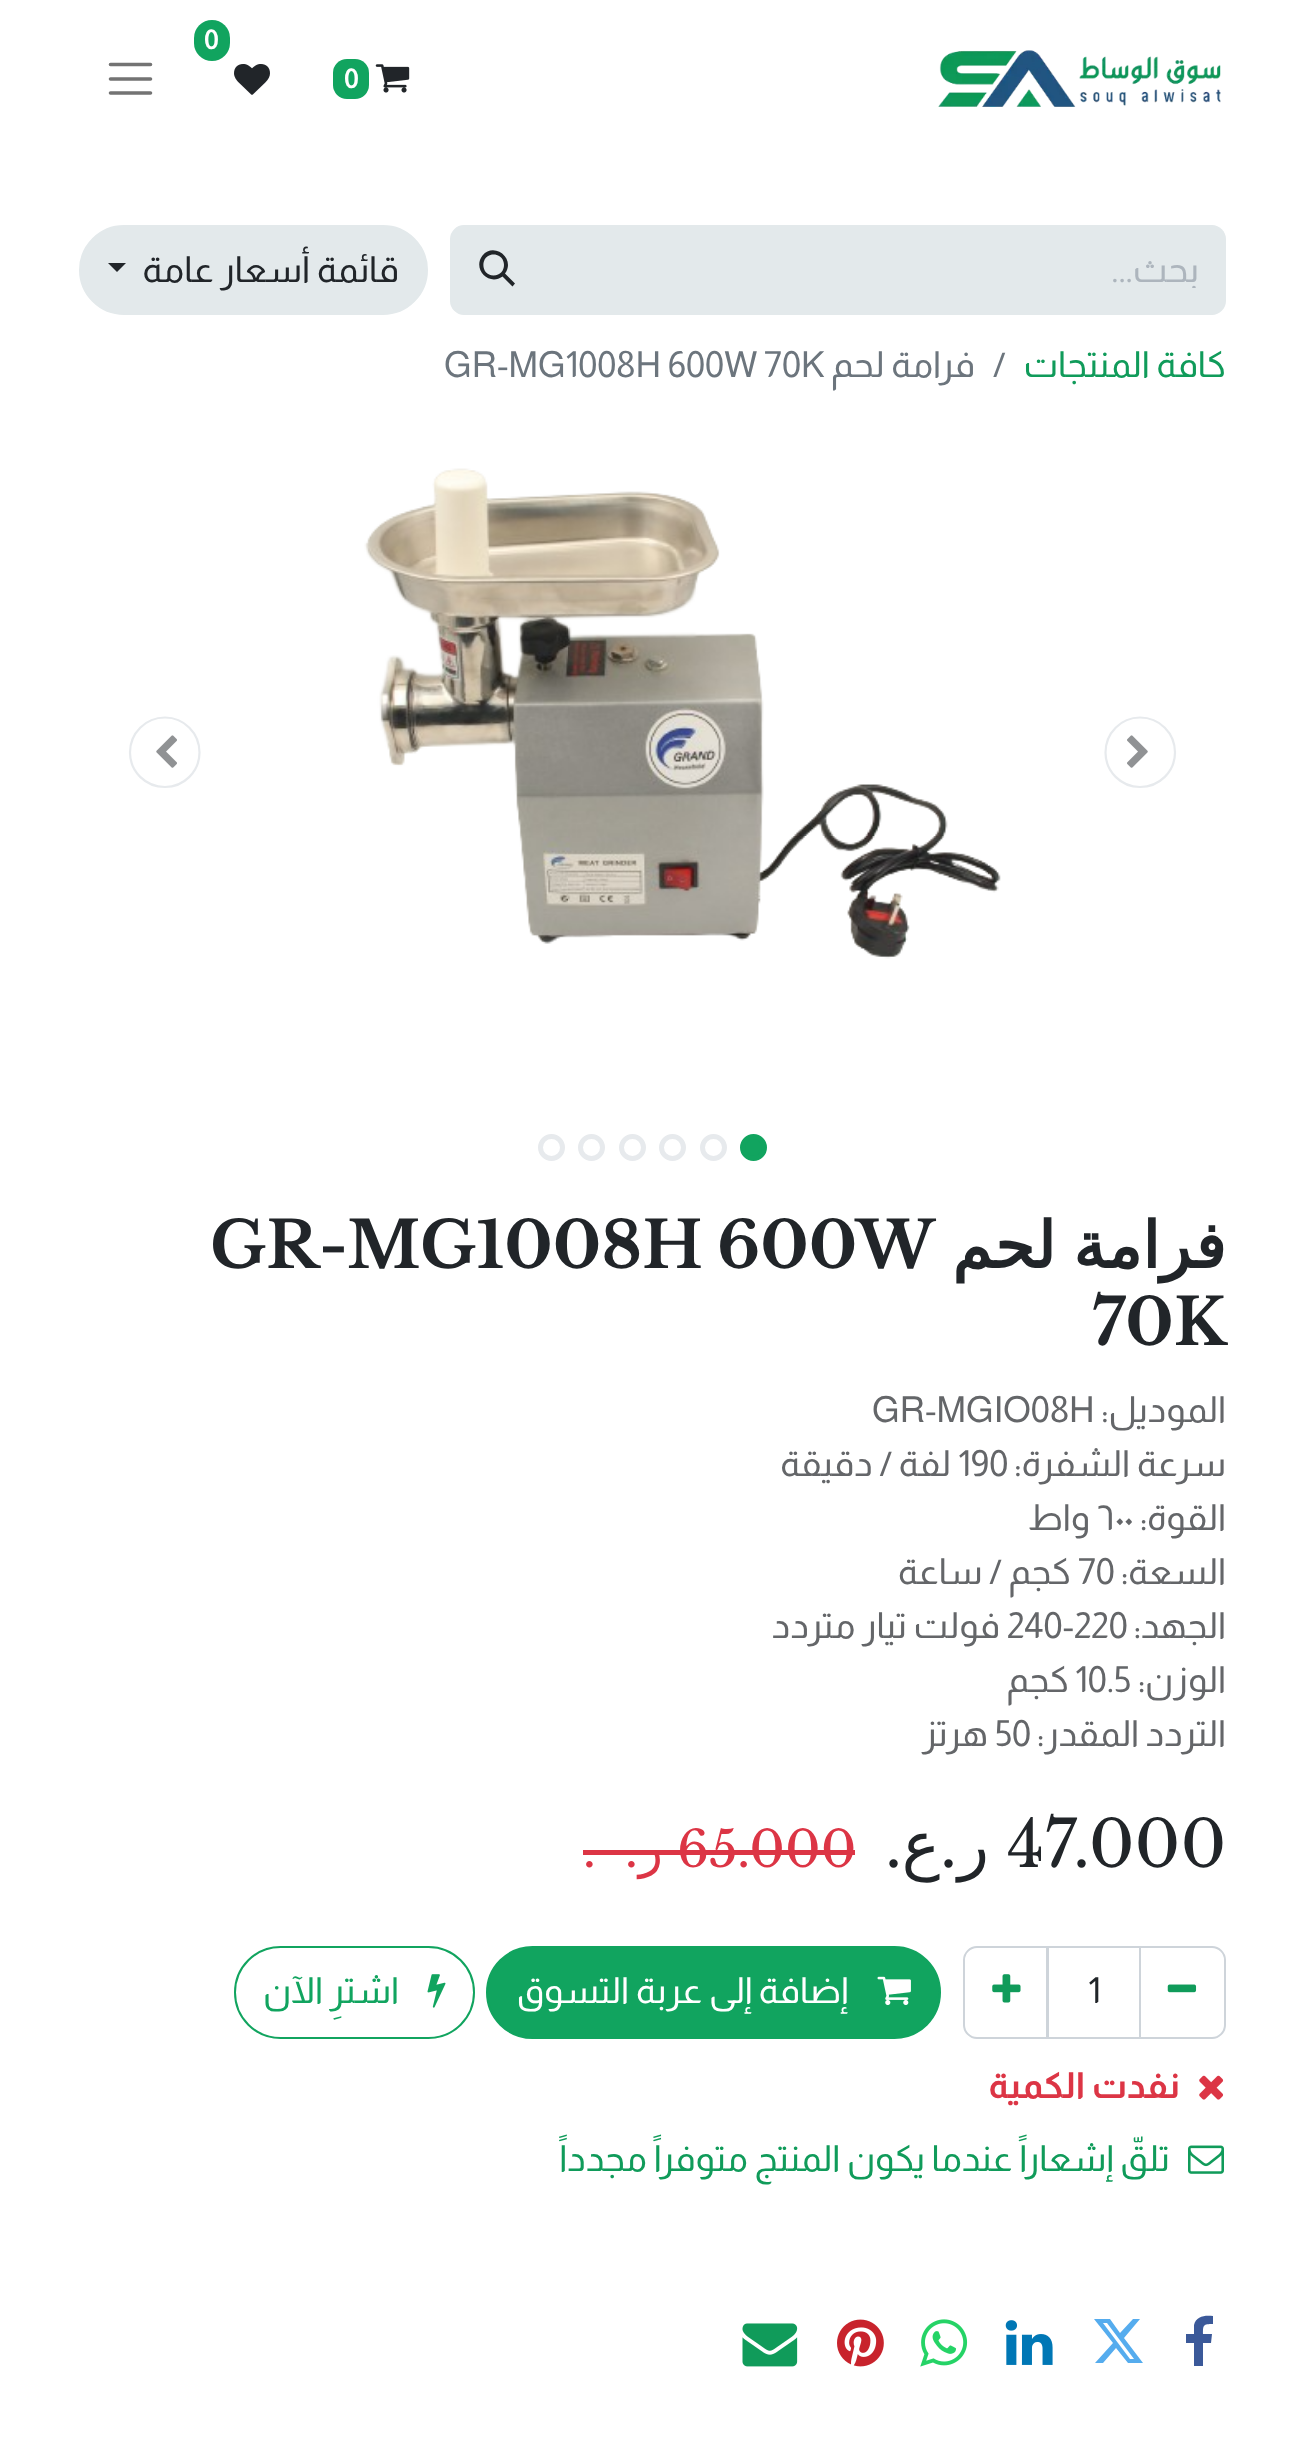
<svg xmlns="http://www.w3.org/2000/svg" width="1305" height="2440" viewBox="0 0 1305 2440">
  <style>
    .t1 { font: bold 27px Almarai; fill: #fff; }
    .t2 { font: 36px Almarai; direction: rtl; fill: #adb5bd; }
    .t3 { font: 36px Almarai; direction: rtl; fill: #212529; }
    .t4 { font: 36px Almarai; direction: rtl; fill: #109b5a; }
    .t5 { font: 36px Almarai; fill: #6c757d; }
    .t6 { font: 36px Almarai; direction: rtl; fill: #6c757d; }
    .t7 { font: bold 64.25px DejaVu Sans; direction: rtl; fill: #212529; }
    .t8 { font: bold 64.25px Libre Baskerville; fill: #212529; }
    .t9 { font: 36px Almarai; direction: rtl; fill: #646669; }
    .t10 { font: 36px Almarai; fill: #646669; }
    .t11 { font: 64.25px Libre Baskerville; fill: #212529; }
    .t12 { font: 64.25px DejaVu Sans; direction: rtl; fill: #212529; }
    .t13 { font: 64.25px Libre Baskerville; direction: rtl; fill: #212529; }
    .t14 { font: 50px Libre Baskerville; fill: #dc3545; }
    .t15 { font: 50px DejaVu Sans; direction: rtl; fill: #dc3545; }
    .t16 { font: 50px Libre Baskerville; direction: rtl; fill: #dc3545; }
    .t17 { font: 36px Almarai; fill: #212529; }
    .t18 { font: 36px Almarai; direction: rtl; fill: #fff; }
    .t19 { font: 36px Almarai; direction: rtl; fill: #11a45f; }
    .t20 { font: bold 36px Almarai; direction: rtl; fill: #dc3545; }
  </style>
  <defs>
    <clipPath id="clip1"><rect x="628" y="250" width="571" height="38"/></clipPath>
  </defs>
  <rect width="100%" height="100%" fill="#fff"/>
  <image x="938" y="50" width="283" height="57" href="images/1.png"/>
  <rect x="194" y="20" width="36" height="41" rx="18" fill="#11a45f"/>
  <text x="204" y="49" class="t1">0</text>
  <image x="234" y="64" width="36" height="31" href="images/2.png"/>
  <image x="375" y="64" width="35" height="29" href="images/3.png"/>
  <rect x="333" y="59" width="36" height="40" rx="14" fill="#11a45f"/>
  <text x="344" y="88" class="t1">0</text>
  <path d="M110.5 64.5H150.5M110.5 79H150.5M110.5 93H150.5" fill="none" stroke="#737373" stroke-width="3.6" stroke-linecap="round"/>
  <path d="M542 225H1212C1219.5 225 1226 231.5 1226 239V301C1226 308.5 1219.5 315 1212 315H542Z" fill="#e3e9eb"/>
  <g clip-path="url(#clip1)">
    <text x="1199" y="282" class="t2">بحث...</text>
  </g>
  <path d="M464 226H544V314H464C457 314 451 308 451 301V239C451 232 457 226 464 226Z" fill="#e3e9eb" stroke="#e3e9eb" stroke-width="2"/>
  <path d="M482.5 255.5C494 241.5 516 258.5 505 273.5L515 283.5L512.5 286.5L502.5 276.5C489 286.5 472 269 482.5 255.5ZM493.5 254.5C480 254.5 480 275.5 493.5 275.5C507.5 275.5 507.5 254.5 493.5 254.5Z" fill="#212529"/>
  <rect x="80" y="226" width="347" height="88" rx="44" fill="#e3e9eb" stroke="#e3e9eb" stroke-width="2"/>
  <text x="399" y="282" class="t3">قائمة أسعار عامة</text>
  <path d="M108 263H126L117 272Z" fill="#212529"/>
  <text x="1226" y="377" class="t4">كافة المنتجات</text>
  <text x="993" y="377" class="t5">/</text>
  <text x="975" y="377" class="t6">فرامة لحم</text>
  <text x="444" y="377" class="t5">GR-MG1008H 600W 70K</text>
  <path d="M1140 787C1121 787 1105.5 771.5 1105.5 752.5C1105.5 733 1121 717.5 1140 717.5C1159.5 717.5 1175 733 1175 752.5C1175 771.5 1159.5 787 1140 787Z" fill="none" stroke="#e7eaed" stroke-width="2.2"/>
  <image x="1127" y="735" width="21" height="33" href="images/4.png"/>
  <image x="364" y="468" width="637" height="491" href="images/5.png"/>
  <path d="M165 787C145.5 787 130 771.5 130 752.5C130 733 145.5 717.5 165 717.5C184 717.5 199.5 733 199.5 752.5C199.5 771.5 184 787 165 787Z" fill="none" stroke="#e7eaed" stroke-width="2.2"/>
  <image x="156" y="735" width="21" height="33" href="images/6.png"/>
  <circle cx="753.5" cy="1147.5" r="11" fill="#11a45f" stroke="#11a45f" stroke-width="5"/>
  <circle cx="713.5" cy="1147.5" r="11" fill="none" stroke="#e7eaed" stroke-width="5"/>
  <circle cx="672.5" cy="1147.5" r="11" fill="none" stroke="#e7eaed" stroke-width="5"/>
  <circle cx="632.5" cy="1147.5" r="11" fill="none" stroke="#e7eaed" stroke-width="5"/>
  <circle cx="591.5" cy="1147.5" r="11" fill="none" stroke="#e7eaed" stroke-width="5"/>
  <circle cx="551.5" cy="1147.5" r="11" fill="none" stroke="#e7eaed" stroke-width="5"/>
  <text x="1226" y="1268" word-spacing="-3" class="t7">فرامة لحم</text>
  <text x="210" y="1268" word-spacing="-3" class="t8">GR-MG1008H 600W</text>
  <text x="1092" y="1345" class="t8">70K</text>
  <text x="1226" y="1422" class="t9">الموديل:</text>
  <text x="872" y="1422" class="t10">GR-MGIO08H</text>
  <text x="1226" y="1476" class="t9">سرعة الشفرة:</text>
  <text x="958" y="1476" class="t10">190</text>
  <text x="951" y="1476" class="t9">لفة / دقيقة</text>
  <text x="1226" y="1530" class="t9">القوة:</text>
  <text x="1096" y="1530" class="t10">٦٠٠</text>
  <text x="1090" y="1530" class="t9">واط</text>
  <text x="1226" y="1584" class="t9">السعة:</text>
  <text x="1078" y="1584" class="t10">70</text>
  <text x="1071" y="1584" class="t9">كجم / ساعة</text>
  <text x="1226" y="1638" class="t9">الجهد:</text>
  <text x="1007" y="1638" class="t10">240-220</text>
  <text x="1000" y="1638" class="t9">فولت تيار متردد</text>
  <text x="1226" y="1692" class="t9">الوزن:</text>
  <text x="1075" y="1692" class="t10">10.5</text>
  <text x="1069" y="1692" class="t9">كجم</text>
  <text x="1226" y="1746" class="t9">التردد المقدر:</text>
  <text x="995" y="1746" class="t10">50</text>
  <text x="988" y="1746" class="t9">هرتز</text>
  <text x="1007" y="1867" class="t11">47.000</text>
  <text x="989" y="1867" class="t12">ر</text>
  <text x="957" y="1867" class="t13">.</text>
  <text x="940" y="1867" class="t12">ع</text>
  <text x="902" y="1867" class="t13">.</text>
  <text x="677" y="1867" class="t14">65.000</text>
  <rect x="677" y="1850" width="178" height="5" fill="#dc3545"/>
  <rect x="583" y="1850" width="94" height="5" fill="#dc3545"/>
  <text x="663" y="1867" class="t15">ر</text>
  <text x="638" y="1867" class="t16">.</text>
  <text x="596" y="1867" class="t16">.</text>
  <rect x="1047" y="1947" width="93" height="91" fill="none" stroke="#ced4da" stroke-width="2"/>
  <path d="M1140 1947H1212C1219 1947 1225 1953 1225 1960V2025C1225 2032 1219 2038 1212 2038H1140Z" fill="none" stroke="#ced4da" stroke-width="2"/>
  <image x="1167" y="1984" width="30" height="9" href="images/7.png"/>
  <text x="1088" y="2003" class="t17">1</text>
  <path d="M977 1947H1048V2038H977C970 2038 964 2032 964 2025V1960C964 1953 970 1947 977 1947Z" fill="none" stroke="#ced4da" stroke-width="2"/>
  <image x="992" y="1974" width="29" height="29" href="images/8.png"/>
  <rect x="487" y="1947" width="453" height="91" rx="45.5" fill="#11a45f" stroke="#11a45f" stroke-width="2"/>
  <image x="877" y="1976" width="34" height="30" href="images/9.png"/>
  <text x="848" y="2003" class="t18">إضافة إلى عربة التسوق</text>
  <rect x="235" y="1947" width="239" height="91" rx="45.5" fill="none" stroke="#11a45f" stroke-width="2"/>
  <image x="427" y="1974" width="19" height="34" href="images/10.png"/>
  <text x="399" y="2003" class="t19">اشترِ الآن</text>
  <image x="1199" y="2075" width="25" height="25" href="images/11.png"/>
  <text x="1180" y="2098" class="t20">نفدت الكمية</text>
  <image x="1188" y="2145" width="36" height="29" href="images/12.png"/>
  <text x="1170" y="2171" class="t4">تلقّ إشعاراً عندما يكون المنتج متوفراً مجدداً</text>
  <path d="M1213 2316V2324C1203 2324 1203 2325 1203 2334H1212L1211 2343H1203V2366H1194V2343H1186V2334H1194V2325C1196 2316 1205 2315 1213 2316Z" fill="#3b5999"/>
  <path d="M1133 2319H1140L1124 2338L1143 2363H1128L1116 2348L1103 2363H1095L1113 2343L1094 2319H1110L1120 2333ZM1130 2359H1134L1107 2323H1103Z" fill="#55acee"/>
  <image x="1005" y="2320" width="48" height="45" href="images/13.png"/>
  <image x="920" y="2319" width="48" height="48" href="images/14.png"/>
  <image x="837" y="2319" width="47" height="48" href="images/15.png"/>
  <image x="742" y="2323" width="56" height="44" href="images/16.png"/>
</svg>
